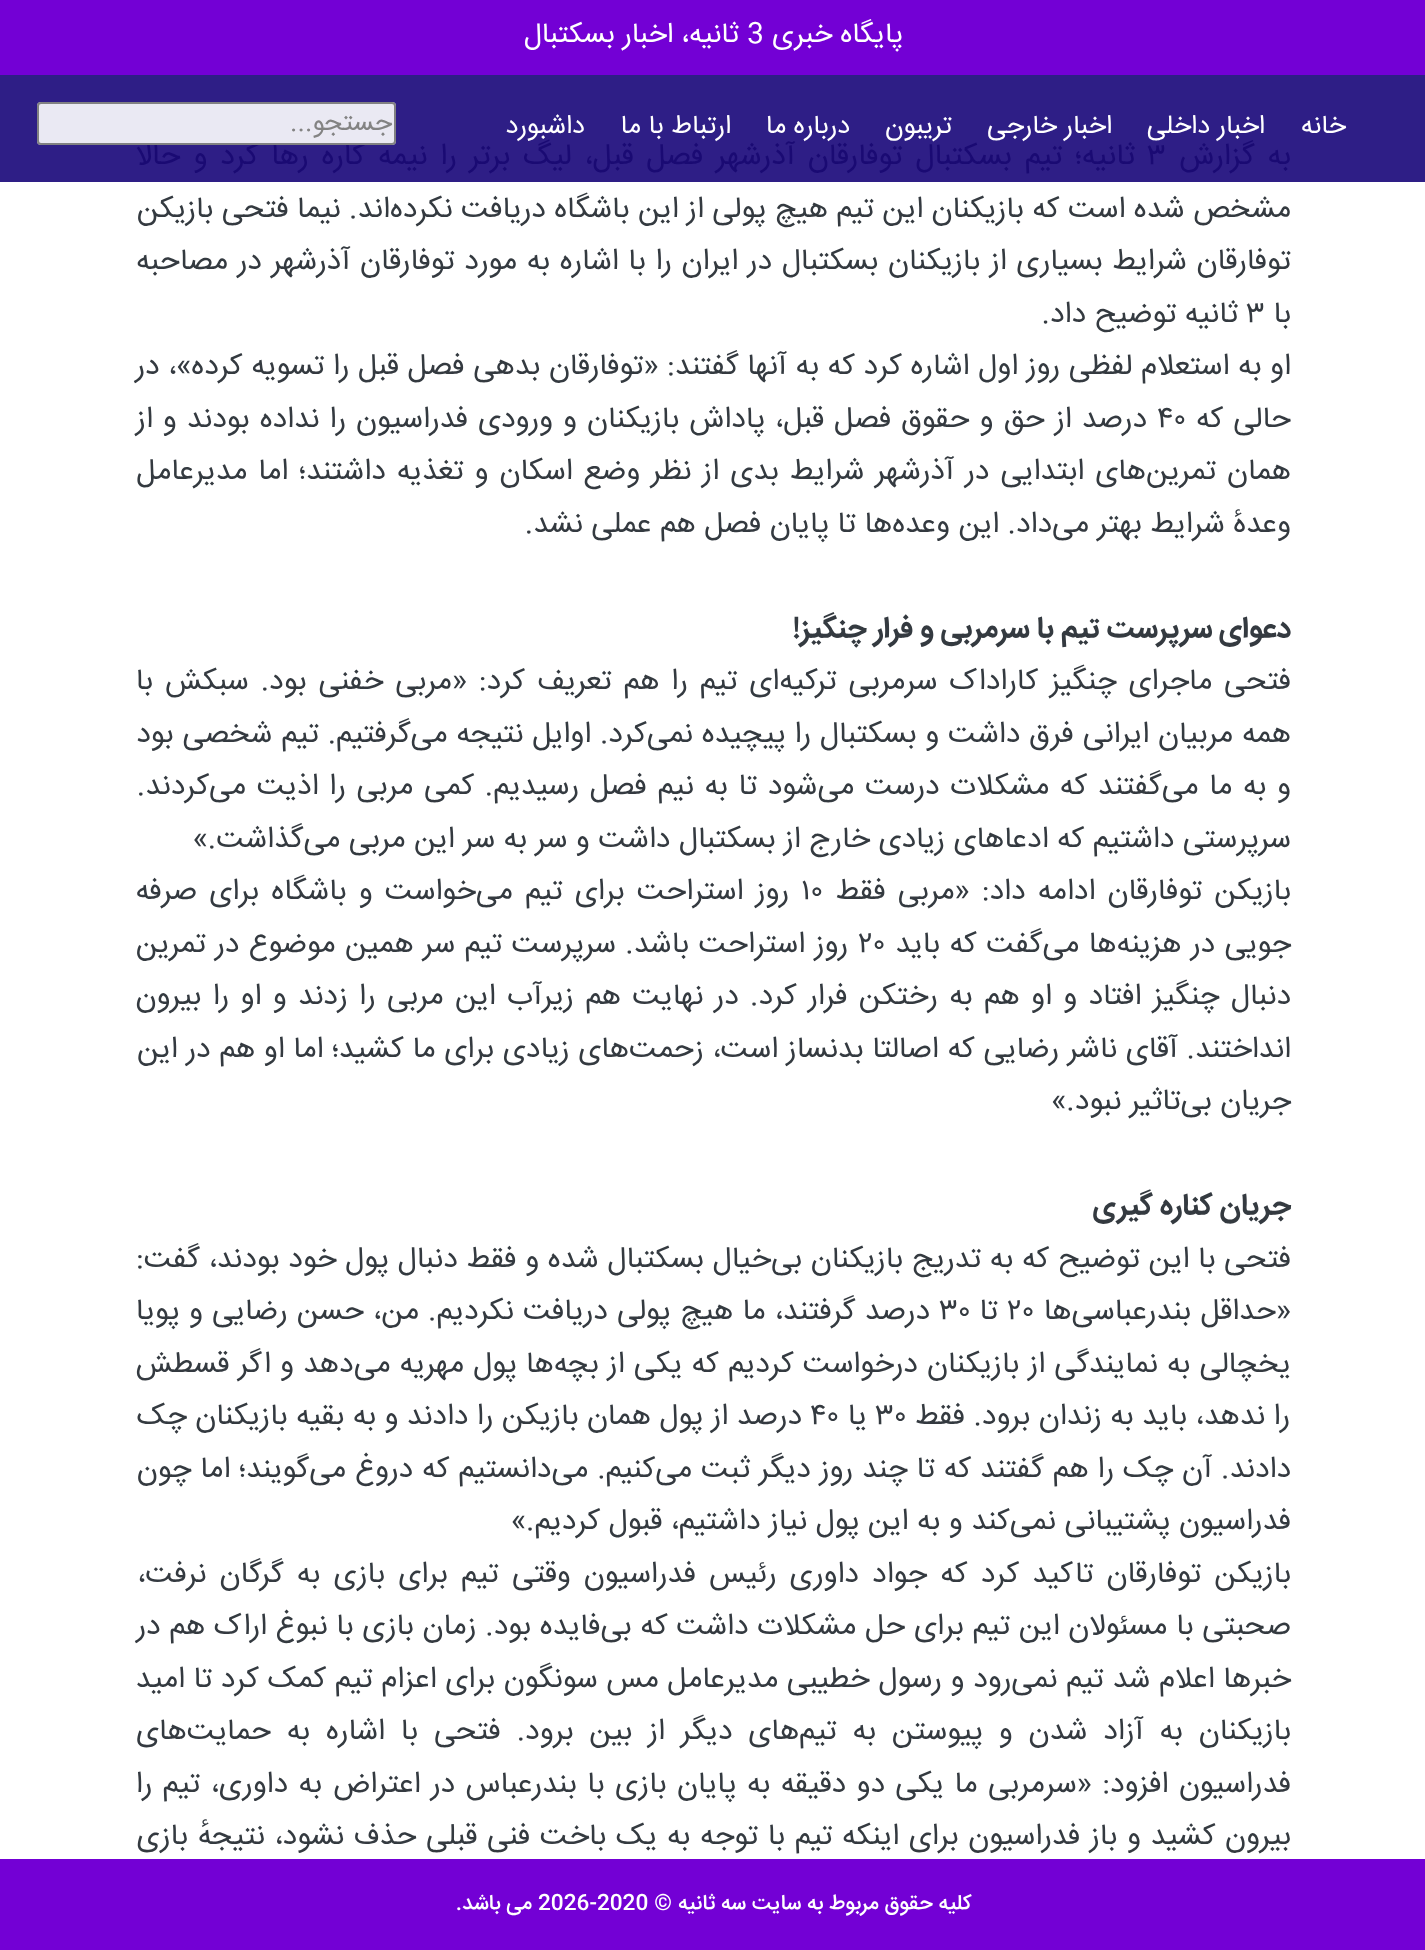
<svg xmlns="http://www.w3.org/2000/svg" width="1425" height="1950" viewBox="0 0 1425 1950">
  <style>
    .t1 { font: 28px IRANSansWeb; direction: rtl; fill: #fff; }
    .t2 { font: 28px IRANSansWeb; fill: #fff; }
    .t3 { font: 26.25px IRANSansWeb; direction: rtl; fill: #fff; }
    .t4 { font: 29.75px IRANSansWeb; direction: rtl; fill: #1a0a73; }
    .t5 { font: 26.25px IRANSansWeb; direction: rtl; fill: #838383; }
    .t6 { font: 29.75px IRANSansWeb; fill: #1a0a73; }
    .t7 { font: 29.75px IRANSansWeb; direction: rtl; fill: #343a40; }
    .t8 { font: 29.75px IRANSansWeb; fill: #343a40; }
    .t9 { font: bold 29.75px IRANSansWeb; direction: rtl; fill: #343a40; }
    .t10 { font: 500 21px IRANSansWeb; direction: rtl; fill: #fff; }
    .t11 { font: 500 21px IRANSansWeb; fill: #fff; }
  </style>
  <rect width="100%" height="100%" fill="#fff"/>
  <rect x="0" y="75" width="1425" height="107" fill="#2e1e86"/>
  <rect x="0" y="0" width="1425" height="75" fill="#7300d5"/>
  <text x="903" y="42" class="t1">پایگاه خبری</text>
  <text x="747" y="42" class="t2">3</text>
  <text x="739" y="42" class="t1">ثانیه، اخبار بسکتبال</text>
  <text x="1346" y="133" class="t3">خانه</text>
  <text x="1265" y="133" class="t3">اخبار داخلی</text>
  <text x="1112" y="133" class="t3">اخبار خارجی</text>
  <text x="952" y="133" class="t3">تریبون</text>
  <text x="850" y="133" class="t3">درباره ما</text>
  <text x="731" y="133" class="t3">ارتباط با ما</text>
  <text x="585" y="133" class="t3">داشبورد</text>
  <text x="1135" y="164" word-spacing="4.4" class="t4">ثانیه؛ تیم بسکتبال توفارقان آذرشهر فصل قبل، لیگ برتر را نیمه کاره رها کرد و حالا</text>
  <rect x="37" y="102" width="359" height="43" rx="4" fill="#ffffffe6"/>
  <rect x="38" y="103" width="357" height="41" rx="3" fill="none" stroke="#767676e6" stroke-width="2"/>
  <text x="392" y="130" class="t5">جستجو...</text>
  <text x="1291" y="164" word-spacing="4.4" class="t4">به گزارش</text>
  <text x="1147" y="164" class="t6">۳</text>
  <text x="1291" y="217" class="t7">مشخص شده است که بازیکنان این تیم هیچ پولی از این باشگاه دریافت نکرده‌اند. نیما فتحی بازیکن</text>
  <text x="1291" y="269" word-spacing="1.25" class="t7">توفارقان شرایط بسیاری از بازیکنان بسکتبال در ایران را با اشاره به مورد توفارقان آذرشهر در مصاحبه</text>
  <text x="1291" y="322" class="t7">با</text>
  <text x="1246" y="322" class="t8">۳</text>
  <text x="1238" y="322" class="t7">ثانیه توضیح داد.</text>
  <text x="1291" y="374" word-spacing="0.2" class="t7">او به استعلام لفظی روز اول اشاره کرد که به آنها گفتند: «توفارقان بدهی فصل قبل را تسویه کرده»، در</text>
  <text x="1291" y="427" word-spacing="1.6" class="t7">حالی که</text>
  <text x="1157" y="427" class="t8">۴۰</text>
  <text x="1147" y="427" word-spacing="1.6" class="t7">درصد از حق و حقوق فصل قبل، پاداش بازیکنان و ورودی فدراسیون را نداده بودند و از</text>
  <text x="1291" y="479" word-spacing="2.6" class="t7">همان تمرین‌های ابتدایی در آذرشهر شرایط بدی از نظر وضع اسکان و تغذیه داشتند؛ اما مدیرعامل</text>
  <text x="1291" y="532" class="t7">وعدهٔ شرایط بهتر می‌داد. این وعده‌ها تا پایان فصل هم عملی نشد.</text>
  <text x="1291" y="637" class="t9">دعوای سرپرست تیم با سرمربی و فرار چنگیز!</text>
  <text x="1291" y="689" word-spacing="3.5" class="t7">فتحی ماجرای چنگیز کاراداک سرمربی ترکیه‌ای تیم را هم تعریف کرد: «مربی خفنی بود. سبکش با</text>
  <text x="1291" y="742" word-spacing="0.4" class="t7">همه مربیان ایرانی فرق داشت و بسکتبال را پیچیده نمی‌کرد. اوایل نتیجه می‌گرفتیم. تیم شخصی بود</text>
  <text x="1291" y="794" word-spacing="2.25" class="t7">و به ما می‌گفتند که مشکلات درست می‌شود تا به نیم فصل رسیدیم. کمی مربی را اذیت می‌کردند.</text>
  <text x="1291" y="847" class="t7">سرپرستی داشتیم که ادعاهای زیادی خارج از بسکتبال داشت و سر به سر این مربی می‌گذاشت.»</text>
  <text x="1291" y="899" word-spacing="3.75" class="t7">بازیکن توفارقان ادامه داد: «مربی فقط</text>
  <text x="801" y="899" class="t8">۱۰</text>
  <text x="789" y="899" word-spacing="3.75" class="t7">روز استراحت برای تیم می‌خواست و باشگاه برای صرفه</text>
  <text x="1291" y="952" word-spacing="1" class="t7">جویی در هزینه‌ها می‌گفت که باید</text>
  <text x="858" y="952" class="t8">۲۰</text>
  <text x="848" y="952" word-spacing="1" class="t7">روز استراحت باشد. سرپرست تیم سر همین موضوع در تمرین</text>
  <text x="1291" y="1004" word-spacing="2.9" class="t7">دنبال چنگیز افتاد و او هم به رختکن فرار کرد. در نهایت هم زیرآب این مربی را زدند و او را بیرون</text>
  <text x="1291" y="1057" word-spacing="0.3" class="t7">انداختند. آقای ناشر رضایی که اصالتا بدنساز است، زحمت‌های زیادی برای ما کشید؛ اما او هم در این</text>
  <text x="1291" y="1109" class="t7">جریان بی‌تاثیر نبود.»</text>
  <text x="1291" y="1214" class="t9">جریان کناره گیری</text>
  <text x="1291" y="1267" word-spacing="0.25" class="t7">فتحی با این توضیح که به تدریج بازیکنان بی‌خیال بسکتبال شده و فقط دنبال پول خود بودند، گفت:</text>
  <text x="1291" y="1319" word-spacing="1" class="t7">«حداقل بندرعباسی‌ها</text>
  <text x="1007" y="1319" class="t8">۲۰</text>
  <text x="998" y="1319" class="t7">تا</text>
  <text x="939" y="1319" class="t8">۳۰</text>
  <text x="930" y="1319" word-spacing="0.75" class="t7">درصد گرفتند، ما هیچ پولی دریافت نکردیم. من، حسن رضایی و پویا</text>
  <text x="1291" y="1372" word-spacing="0.7" class="t7">یخچالی به نمایندگی از بازیکنان درخواست کردیم که یکی از بچه‌ها پول مهریه می‌دهد و اگر قسطش</text>
  <text x="1290" y="1424" class="t7">را ندهد، باید به زندان برود. فقط</text>
  <text x="875" y="1424" class="t8">۳۰</text>
  <text x="867" y="1424" class="t7">یا</text>
  <text x="810" y="1424" class="t8">۴۰</text>
  <text x="802" y="1424" class="t7">درصد از پول همان بازیکن را دادند و به بقیه بازیکنان چک</text>
  <text x="1291" y="1477" word-spacing="0.5" class="t7">دادند. آن چک را هم گفتند که تا چند روز دیگر ثبت می‌کنیم. می‌دانستیم که دروغ می‌گویند؛ اما چون</text>
  <text x="1291" y="1529" class="t7">فدراسیون پشتیبانی نمی‌کند و به این پول نیاز داشتیم، قبول کردیم.»</text>
  <text x="1291" y="1582" word-spacing="4.75" class="t7">بازیکن توفارقان تاکید کرد که جواد داوری رئیس فدراسیون وقتی تیم برای بازی به گرگان نرفت،</text>
  <text x="1291" y="1634" word-spacing="0.3" class="t7">صحبتی با مسئولان این تیم برای حل مشکلات داشت که بی‌فایده بود. زمان بازی با نبوغ اراک هم در</text>
  <text x="1291" y="1687" word-spacing="0.25" class="t7">خبرها اعلام شد تیم نمی‌رود و رسول خطیبی مدیرعامل مس سونگون برای اعزام تیم کمک کرد تا امید</text>
  <text x="1291" y="1739" word-spacing="7.4" class="t7">بازیکنان به آزاد شدن و پیوستن به تیم‌های دیگر از بین برود. فتحی با اشاره به حمایت‌های</text>
  <text x="1291" y="1792" word-spacing="2" class="t7">فدراسیون افزود: «سرمربی ما یکی دو دقیقه به پایان بازی با بندرعباس در اعتراض به داوری، تیم را</text>
  <text x="1291" y="1844" word-spacing="1.25" class="t7">بیرون کشید و باز فدراسیون برای اینکه تیم با توجه به یک باخت فنی قبلی حذف نشود، نتیجهٔ بازی</text>
  <rect x="0" y="1859" width="1425" height="91" fill="#7300d5"/>
  <text x="971" y="1909" class="t10">کلیه حقوق مربوط به سایت سه ثانیه ©</text>
  <text x="538" y="1909" class="t11">2026-2020</text>
  <text x="532" y="1909" class="t10">می باشد.</text>
</svg>
